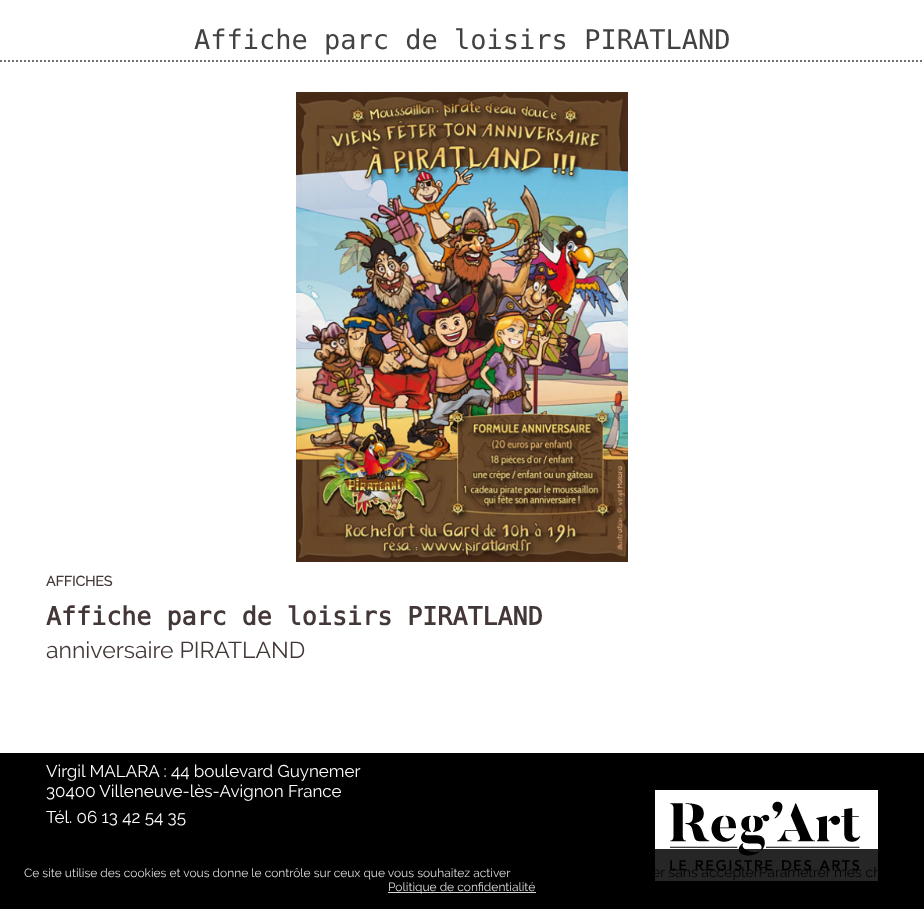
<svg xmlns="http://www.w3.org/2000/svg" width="924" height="909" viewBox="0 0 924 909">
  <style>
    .t1 { font: 27px DejaVu Sans Mono; fill: #424242; }
    .t2 { font: bold 14px Raleway; fill: #443737; }
    .t3 { font: bold 25px DejaVu Sans Mono; fill: #443737; }
    .t4 { font: 23px Raleway; fill: #443737; }
    .t5 { font: 17px Raleway; fill: #fff; }
    .t6 { font: 12px Raleway; fill: #d9d9d9; }
    .t7 { font: 14px Raleway; fill: #040404; }
  </style>
  <rect width="100%" height="100%" fill="#fff"/>
  <text x="194" y="49" class="t1">Affiche parc de loisirs PIRATLAND</text>
  <path d="M0 61H924" fill="none" stroke="#736f6f" stroke-width="2" stroke-dasharray="2 2"/>
  <image x="296" y="92" width="332" height="470" href="images/1.png"/>
  <text x="46" y="586" class="t2">AFFICHES</text>
  <text x="46" y="625" class="t3">Affiche parc de loisirs PIRATLAND</text>
  <text x="46" y="658" class="t4">anniversaire PIRATLAND</text>
  <rect x="0" y="753" width="924" height="156" fill="#000"/>
  <text x="46" y="777" class="t5">Virgil MALARA : 44 boulevard Guynemer</text>
  <text x="46" y="797" class="t5">30400 Villeneuve-lès-Avignon France</text>
  <text x="46" y="823" class="t5">Tél. 06 13 42 54 35</text>
  <image x="655" y="790" width="223" height="91" href="images/2.png"/>
  <rect x="655" y="849" width="223" height="32" fill="#000000d9"/>
  <text x="24" y="877" class="t6">Ce site utilise des cookies et vous donne le contrôle sur ceux que vous souhaitez activer</text>
  <text x="652" y="877" class="t7">er sans accepterParamétrer mes ch</text>
  <rect x="388" y="892" width="148" height="1" fill="#d9d9d9"/>
  <text x="388" y="891" class="t6">Politique de confidentialité</text>
</svg>
